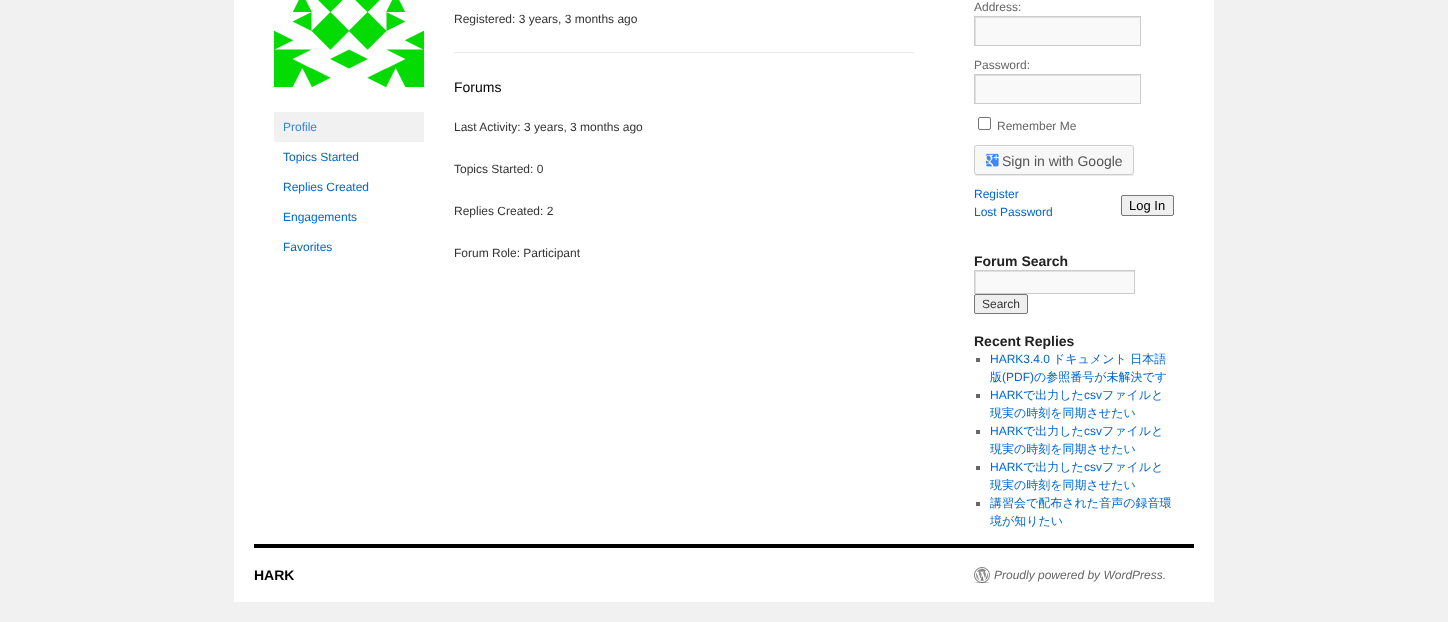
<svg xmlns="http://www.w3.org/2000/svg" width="1448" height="622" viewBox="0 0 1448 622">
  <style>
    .t1 { font: 12px Liberation Sans; fill: #3385d6; }
    .t2 { font: 12px Liberation Sans; fill: #06c; }
    .t3 { font: 12px Liberation Sans; fill: #333; }
    .t4 { font: 14px Liberation Sans; fill: #000; }
    .t5 { font: 12px Liberation Sans; fill: #666; }
    .t6 { font: 14px Liberation Sans; fill: #555; }
    .t7 { font: 13px Liberation Sans; fill: #000; }
    .t8 { font: bold 14px Liberation Sans; fill: #222; }
    .t9 { font: 500 12px WenQuanYi Zen Hei; fill: #06c; }
    .t10 { font: bold 14px Liberation Sans; fill: #000; }
    .t11 { font: italic 12px Liberation Sans; fill: #666; }
  </style>
  <defs>
    <clipPath id="clip1"><rect x="975" y="17" width="165" height="28"/></clipPath>
    <clipPath id="clip2"><rect x="975" y="75" width="165" height="28"/></clipPath>
    <clipPath id="clip3"><rect x="975" y="271" width="159" height="22"/></clipPath>
  </defs>
  <rect width="100%" height="100%" fill="#f1f1f1"/>
  <rect x="234" y="0" width="980" height="602" fill="#fff"/>
  <image x="274" y="0" width="150" height="87" href="images/1.png"/>
  <rect x="274" y="112" width="150" height="30" fill="#f1f1f1"/>
  <text x="283" y="131" class="t1">Profile</text>
  <text x="283" y="161" class="t2">Topics Started</text>
  <text x="283" y="191" class="t2">Replies Created</text>
  <text x="283" y="221" class="t2">Engagements</text>
  <text x="283" y="251" class="t2">Favorites</text>
  <text x="454" y="23" class="t3">Registered: 3 years, 3 months ago</text>
  <rect x="454" y="52" width="460" height="1" fill="#e7e7e7"/>
  <text x="454" y="92" class="t4">Forums</text>
  <text x="454" y="131" class="t3">Last Activity: 3 years, 3 months ago</text>
  <text x="454" y="173" class="t3">Topics Started: 0</text>
  <text x="454" y="215" class="t3">Replies Created: 2</text>
  <text x="454" y="257" class="t3">Forum Role: Participant</text>
  <text x="974" y="11" class="t5">Address:</text>
  <rect x="976" y="18" width="164" height="27" fill="#f9f9f9"/>
  <g clip-path="url(#clip1)">
    <path d="M876-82H1239V144H876ZM976 18H1141V46H976Z" fill="#e0e0e0" fill-rule="evenodd"/>
  </g>
  <rect x="974.5" y="16.5" width="166" height="29" fill="none" stroke="#ccc"/>
  <text x="974" y="69" class="t5">Password:</text>
  <rect x="976" y="76" width="164" height="27" fill="#f9f9f9"/>
  <g clip-path="url(#clip2)">
    <path d="M876-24H1239V202H876ZM976 76H1141V104H976Z" fill="#e0e0e0" fill-rule="evenodd"/>
  </g>
  <rect x="974.5" y="74.5" width="166" height="29" fill="none" stroke="#ccc"/>
  <rect x="978.5" y="117.5" width="12" height="12" rx="1.5" fill="none" stroke="#767676"/>
  <text x="997" y="130" class="t5">Remember Me</text>
  <path d="M974 172C974 174 975 176 977 176H1132C1134 176 1134 174 1134 172C1134 174 1133 175 1131 175H977C975 175 974 174 974 172Z" fill="#ebebeb"/>
  <rect x="974" y="145" width="160" height="30" rx="3" fill="#f7f7f7"/>
  <path d="M977 147H1131C1132 147 1133 148 1133 149C1133 148 1133 146 1131 146H977C975 146 975 148 975 149C975 148 976 147 977 147Z" fill="#fff"/>
  <rect x="974.5" y="145.5" width="159" height="29" rx="2.5" fill="none" stroke="#ccc"/>
  <image x="986" y="153" width="13" height="14" href="images/2.png"/>
  <text x="1002" y="166" class="t6">Sign in with Google</text>
  <text x="974" y="198" class="t2">Register</text>
  <text x="974" y="216" class="t2">Lost Password</text>
  <rect x="1121.5" y="195.5" width="52" height="20" rx="1.5" fill="#efefef" stroke="#767676"/>
  <text x="1129" y="210" class="t7">Log In</text>
  <text x="974" y="266" class="t8">Forum Search</text>
  <rect x="976" y="272" width="158" height="21" fill="#f9f9f9"/>
  <g clip-path="url(#clip3)">
    <path d="M876 172H1233V392H876ZM976 272H1135V294H976Z" fill="#e0e0e0" fill-rule="evenodd"/>
  </g>
  <rect x="974.5" y="270.5" width="160" height="23" fill="none" stroke="#ccc"/>
  <rect x="974.5" y="294.5" width="53" height="19" rx="1.5" fill="#efefef" stroke="#767676"/>
  <text x="982" y="308" class="t3">Search</text>
  <text x="974" y="346" class="t8">Recent Replies</text>
  <rect x="976" y="358" width="4" height="4" fill="#666"/>
  <text x="990" y="363" class="t2">HARK3.4.0</text>
  <text x="1053" y="363" class="t9">ドキュメント 日本語</text>
  <text x="990" y="381" class="t9">版</text>
  <text x="1002" y="381" class="t2">(PDF)</text>
  <text x="1034" y="381" class="t9">の参照番号が未解決です</text>
  <rect x="976" y="394" width="4" height="4" fill="#666"/>
  <text x="990" y="399" class="t2">HARK</text>
  <text x="1023" y="399" class="t9">で出力した</text>
  <text x="1084" y="399" class="t2">csv</text>
  <text x="1102" y="399" class="t9">ファイルと</text>
  <text x="990" y="417" class="t9">現実の時刻を同期させたい</text>
  <rect x="976" y="430" width="4" height="4" fill="#666"/>
  <text x="990" y="435" class="t2">HARK</text>
  <text x="1023" y="435" class="t9">で出力した</text>
  <text x="1084" y="435" class="t2">csv</text>
  <text x="1102" y="435" class="t9">ファイルと</text>
  <text x="990" y="453" class="t9">現実の時刻を同期させたい</text>
  <rect x="976" y="466" width="4" height="4" fill="#666"/>
  <text x="990" y="471" class="t2">HARK</text>
  <text x="1023" y="471" class="t9">で出力した</text>
  <text x="1084" y="471" class="t2">csv</text>
  <text x="1102" y="471" class="t9">ファイルと</text>
  <text x="990" y="489" class="t9">現実の時刻を同期させたい</text>
  <rect x="976" y="502" width="4" height="4" fill="#666"/>
  <text x="990" y="507" class="t9">講習会で配布された音声の録音環</text>
  <text x="990" y="525" class="t9">境が知りたい</text>
  <rect x="254" y="544" width="940" height="4" fill="#000"/>
  <text x="254" y="580" class="t10">HARK</text>
  <image x="974" y="567" width="16" height="16" href="images/3.png"/>
  <text x="994" y="579" class="t11">Proudly powered by WordPress.</text>
</svg>
